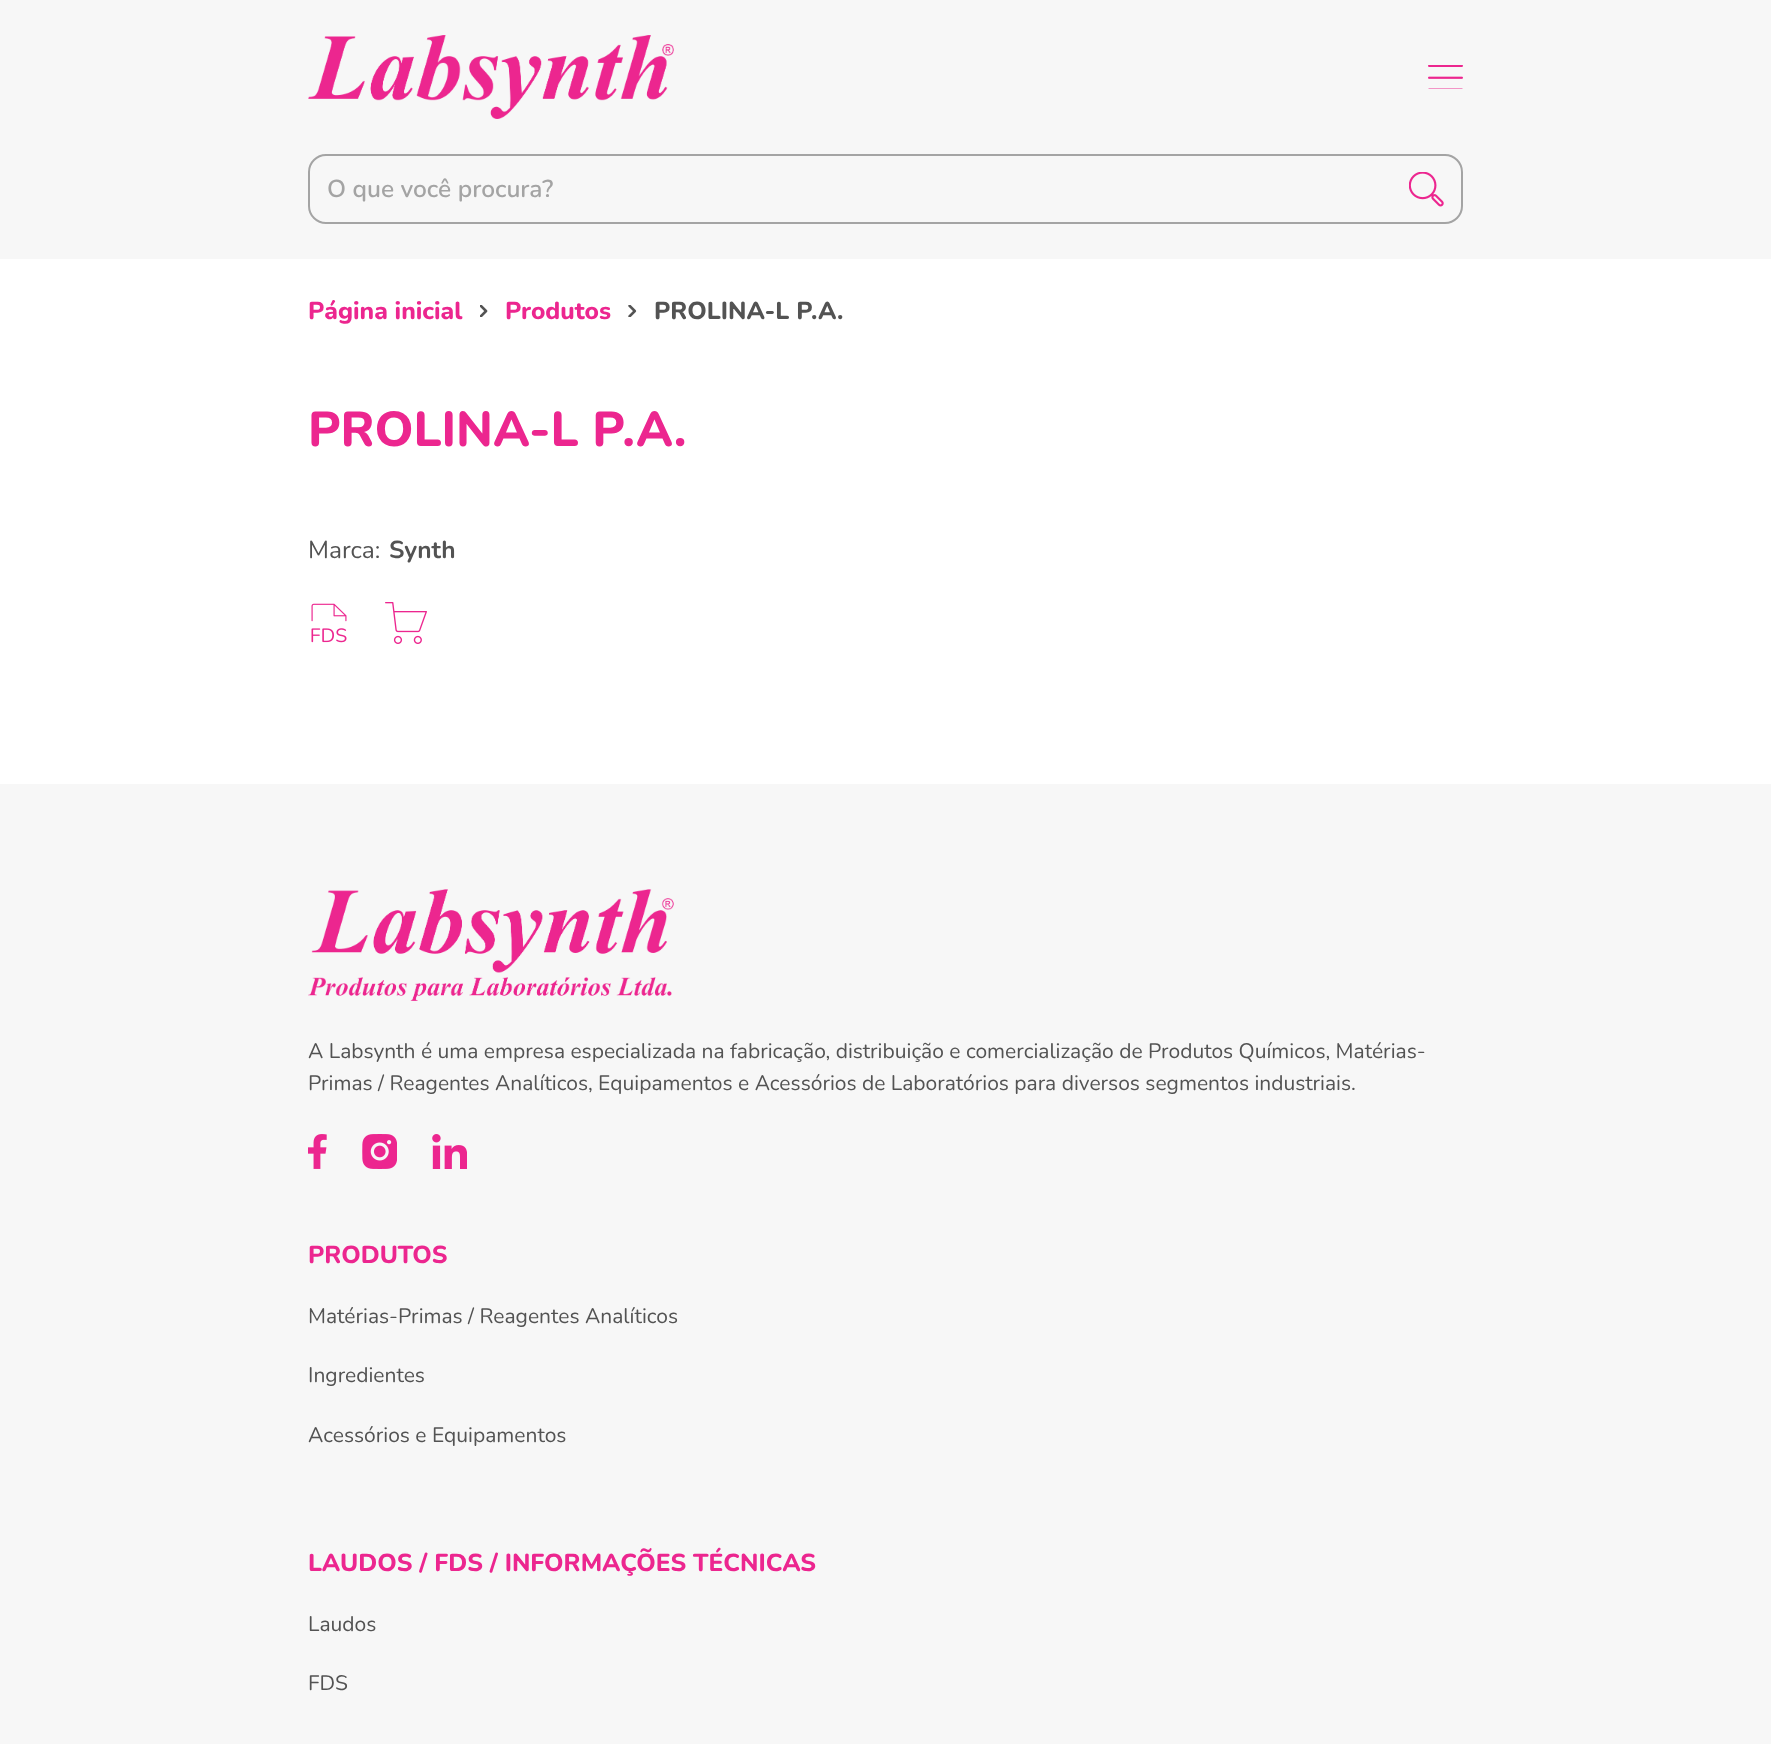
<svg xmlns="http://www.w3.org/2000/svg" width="1771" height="1744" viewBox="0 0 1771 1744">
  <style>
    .t1 { font: 600 24.5px Nunito; fill: #a4a4a4; }
    .t2 { font: 800 24.5px Nunito; fill: #ec268f; }
    .t3 { font: 800 24.5px Nunito; fill: #535353; }
    .t4 { font: 800 49px Nunito; fill: #ec268f; }
    .t5 { font: 24.5px Nunito; fill: #535353; }
    .t6 { font: bold 24.5px Nunito; fill: #535353; }
    .t7 { font: 21px Nunito; fill: #535353; }
  </style>
  <rect width="100%" height="100%" fill="#fff"/>
  <rect x="0" y="0" width="1771" height="259" fill="#f7f7f7"/>
  <image x="308" y="35" width="366" height="84" href="images/1.png"/>
  <image x="1428" y="65" width="35" height="24" href="images/2.png"/>
  <rect x="309" y="155" width="1153" height="68" rx="17" fill="none" stroke="#a4a4a4" stroke-width="2"/>
  <text x="327" y="197" class="t1">O que você procura?</text>
  <image x="1409" y="172" width="35" height="35" href="images/3.png"/>
  <text x="308" y="319" class="t2">Página inicial</text>
  <image x="480" y="305" width="8" height="12" href="images/4.png"/>
  <text x="505" y="319" class="t2">Produtos</text>
  <image x="628" y="305" width="9" height="12" href="images/5.png"/>
  <text x="654" y="319" class="t3">PROLINA-L P.A.</text>
  <text x="308" y="446" class="t4">PROLINA-L P.A.</text>
  <text x="308" y="558" class="t5">Marca:</text>
  <text x="389" y="558" class="t6">Synth</text>
  <image x="311" y="603" width="36" height="40" href="images/6.png"/>
  <image x="385" y="602" width="42" height="42" href="images/7.png"/>
  <rect x="0" y="784" width="1771" height="960" fill="#f7f7f7"/>
  <image x="308" y="889" width="366" height="112" href="images/8.png"/>
  <text x="308" y="1058" class="t7">A Labsynth é uma empresa especializada na fabricação, distribuição e comercialização de Produtos Químicos, Matérias-</text>
  <text x="308" y="1090" class="t7">Primas / Reagentes Analíticos, Equipamentos e Acessórios de Laboratórios para diversos segmentos industriais.</text>
  <image x="308" y="1134" width="19" height="35" href="images/9.png"/>
  <image x="362" y="1134" width="35" height="35" href="images/10.png"/>
  <image x="432" y="1134" width="35" height="35" href="images/11.png"/>
  <text x="308" y="1263" class="t2">PRODUTOS</text>
  <text x="308" y="1323" class="t7">Matérias-Primas / Reagentes Analíticos</text>
  <text x="308" y="1382" class="t7">Ingredientes</text>
  <text x="308" y="1442" class="t7">Acessórios e Equipamentos</text>
  <text x="308" y="1571" class="t2">LAUDOS / FDS / INFORMAÇÕES TÉCNICAS</text>
  <text x="308" y="1631" class="t7">Laudos</text>
  <text x="308" y="1690" class="t7">FDS</text>
</svg>
